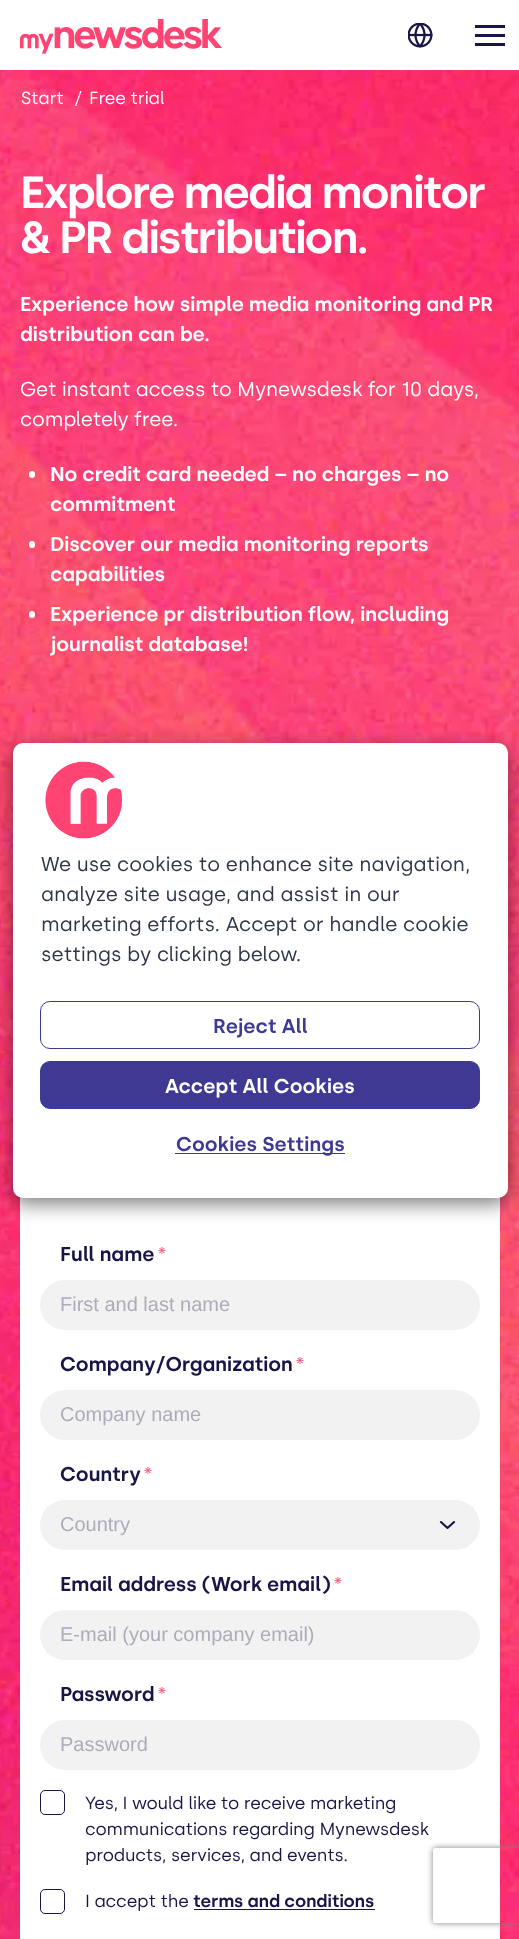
<svg xmlns="http://www.w3.org/2000/svg" width="519" height="1939" viewBox="0 0 519 1939">
  <style>
    .t1 { font: 17.5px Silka; letter-spacing: -0.2px; fill: #fff; }
    .t2 { font: 600 45px Silka; letter-spacing: -2px; fill: #fff; }
    .t3 { font: 600 20px Silka; letter-spacing: -0.2px; fill: #fff; }
    .t4 { font: 20px Silka; letter-spacing: -0.2px; fill: #fff; }
    .t5 { font: 600 20px Silka; letter-spacing: -0.2px; fill: #181646; }
    .t6 { font: 20px Silka; letter-spacing: -0.2px; fill: #ff4473; }
    .t7 { font: 20px Liberation Sans; fill: #acacbb; }
    .t8 { font: 17.5px Silka; letter-spacing: -0.2px; fill: #181646; }
    .t9 { font: 600 17.5px Silka; letter-spacing: -0.2px; fill: #181646; }
    .t10 { font: 20px Silka; fill: #2c3647; }
    .t11 { font: 600 20px Silka; fill: #3e3a93; }
    .t12 { font: 600 20px Silka; fill: #fff; }
  </style>
  <defs>
    <clipPath id="clip1"><path d="M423 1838H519V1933H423ZM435.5 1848H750.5C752 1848 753 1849 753 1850.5V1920.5C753 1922 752 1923 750.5 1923H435.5C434 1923 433 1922 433 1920.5V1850.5C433 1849 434 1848 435.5 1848Z" clip-rule="evenodd"/></clipPath>
  </defs>
  <rect width="100%" height="100%" fill="#fff"/>
  <image x="20" y="19" width="202" height="35" href="images/1.png"/>
  <image x="408" y="23" width="25" height="25" href="images/2.png"/>
  <rect x="475" y="25" width="30" height="3" fill="#181646"/>
  <rect x="475" y="34" width="30" height="3" fill="#181646"/>
  <rect x="475" y="43" width="30" height="3" fill="#181646"/>
  <image x="0" y="70" width="519" height="1869" href="images/3.png"/>
  <text x="21" y="104" class="t1">Start</text>
  <text x="74" y="104" class="t1">/</text>
  <text x="89" y="104" class="t1">Free trial</text>
  <text x="20" y="208" class="t2">Explore media monitor</text>
  <text x="20" y="253" class="t2">&amp; PR distribution.</text>
  <text x="20" y="311" class="t3">Experience how simple media monitoring and PR</text>
  <text x="20" y="341" class="t3">distribution can be.</text>
  <text x="20" y="396" class="t4">Get instant access to Mynewsdesk for 10 days,</text>
  <text x="20" y="426" class="t4">completely free.</text>
  <rect x="29" y="471" width="6" height="7" rx="3" fill="#fff"/>
  <text x="50" y="481" class="t3">No credit card needed – no charges – no</text>
  <text x="50" y="511" class="t3">commitment</text>
  <rect x="29" y="541" width="6" height="7" rx="3" fill="#fff"/>
  <text x="50" y="551" class="t3">Discover our media monitoring reports</text>
  <text x="50" y="581" class="t3">capabilities</text>
  <rect x="29" y="611" width="6" height="7" rx="3" fill="#fff"/>
  <text x="50" y="621" class="t3">Experience pr distribution flow, including</text>
  <text x="50" y="651" class="t3">journalist database!</text>
  <rect x="20" y="1197" width="480" height="742" fill="#fff"/>
  <text x="60" y="1261" class="t5">Full name</text>
  <text x="157" y="1261" class="t6">*</text>
  <rect x="40" y="1280" width="440" height="50" rx="25" fill="#f2f2f2"/>
  <text x="60" y="1311" class="t7">First and last name</text>
  <text x="60" y="1371" class="t5">Company/Organization</text>
  <text x="295" y="1371" class="t6">*</text>
  <rect x="40" y="1390" width="440" height="50" rx="25" fill="#f2f2f2"/>
  <text x="60" y="1421" class="t7">Company name</text>
  <text x="60" y="1481" class="t5">Country</text>
  <text x="143" y="1481" class="t6">*</text>
  <rect x="40" y="1500" width="440" height="50" rx="25" fill="#f2f2f2"/>
  <text x="60" y="1531" class="t7">Country</text>
  <path d="M441 1522L447.5 1528L454 1522" fill="none" stroke="#181646" stroke-width="2.1" stroke-linecap="round" stroke-linejoin="round"/>
  <text x="60" y="1591" class="t5">Email address (Work email)</text>
  <text x="333" y="1591" class="t6">*</text>
  <rect x="40" y="1610" width="440" height="50" rx="25" fill="#f2f2f2"/>
  <text x="60" y="1641" class="t7">E-mail (your company email)</text>
  <text x="60" y="1701" class="t5">Password</text>
  <text x="157" y="1701" class="t6">*</text>
  <rect x="40" y="1720" width="440" height="50" rx="25" fill="#f2f2f2"/>
  <text x="60" y="1751" class="t7">Password</text>
  <rect x="40.5" y="1790.5" width="24" height="24" rx="4.5" fill="none" stroke="#181646"/>
  <text x="85" y="1809" class="t8">Yes, I would like to receive marketing</text>
  <text x="85" y="1835" class="t8">communications regarding Mynewsdesk</text>
  <text x="85" y="1861" class="t8">products, services, and events.</text>
  <rect x="40.5" y="1889.5" width="24" height="24" rx="4.5" fill="none" stroke="#181646"/>
  <text x="85" y="1907" class="t8">I accept the</text>
  <text x="193" y="1907" class="t9">terms and conditions</text>
  <rect x="194" y="1909" width="181" height="1" fill="#181646"/>
  <rect x="13" y="749" width="495" height="455" rx="10" fill="#00000080" filter="blur(9.5px)"/>
  <rect x="13" y="743" width="495" height="455" rx="10" fill="#fff"/>
  <image x="45" y="761" width="77" height="78" href="images/4.png"/>
  <text x="41" y="871" class="t10">We use cookies to enhance site navigation,</text>
  <text x="41" y="901" class="t10">analyze site usage, and assist in our</text>
  <text x="41" y="931" class="t10">marketing efforts. Accept or handle cookie</text>
  <text x="41" y="961" class="t10">settings by clicking below.</text>
  <rect x="40.5" y="1001.5" width="439" height="47" rx="9.5" fill="none" stroke="#3e3a93"/>
  <text x="213" y="1033" class="t11">Reject All</text>
  <rect x="40.5" y="1061.5" width="439" height="47" rx="9.5" fill="#3e3a93" stroke="#3e3a93"/>
  <text x="165" y="1093" class="t12">Accept All Cookies</text>
  <rect x="175" y="1153" width="170" height="1" fill="#3e3a93"/>
  <text x="176" y="1151" class="t11">Cookies Settings</text>
  <g clip-path="url(#clip1)">
    <rect x="433" y="1848" width="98" height="75" rx="2.5" fill="#808080" filter="blur(3px)"/>
  </g>
</svg>
